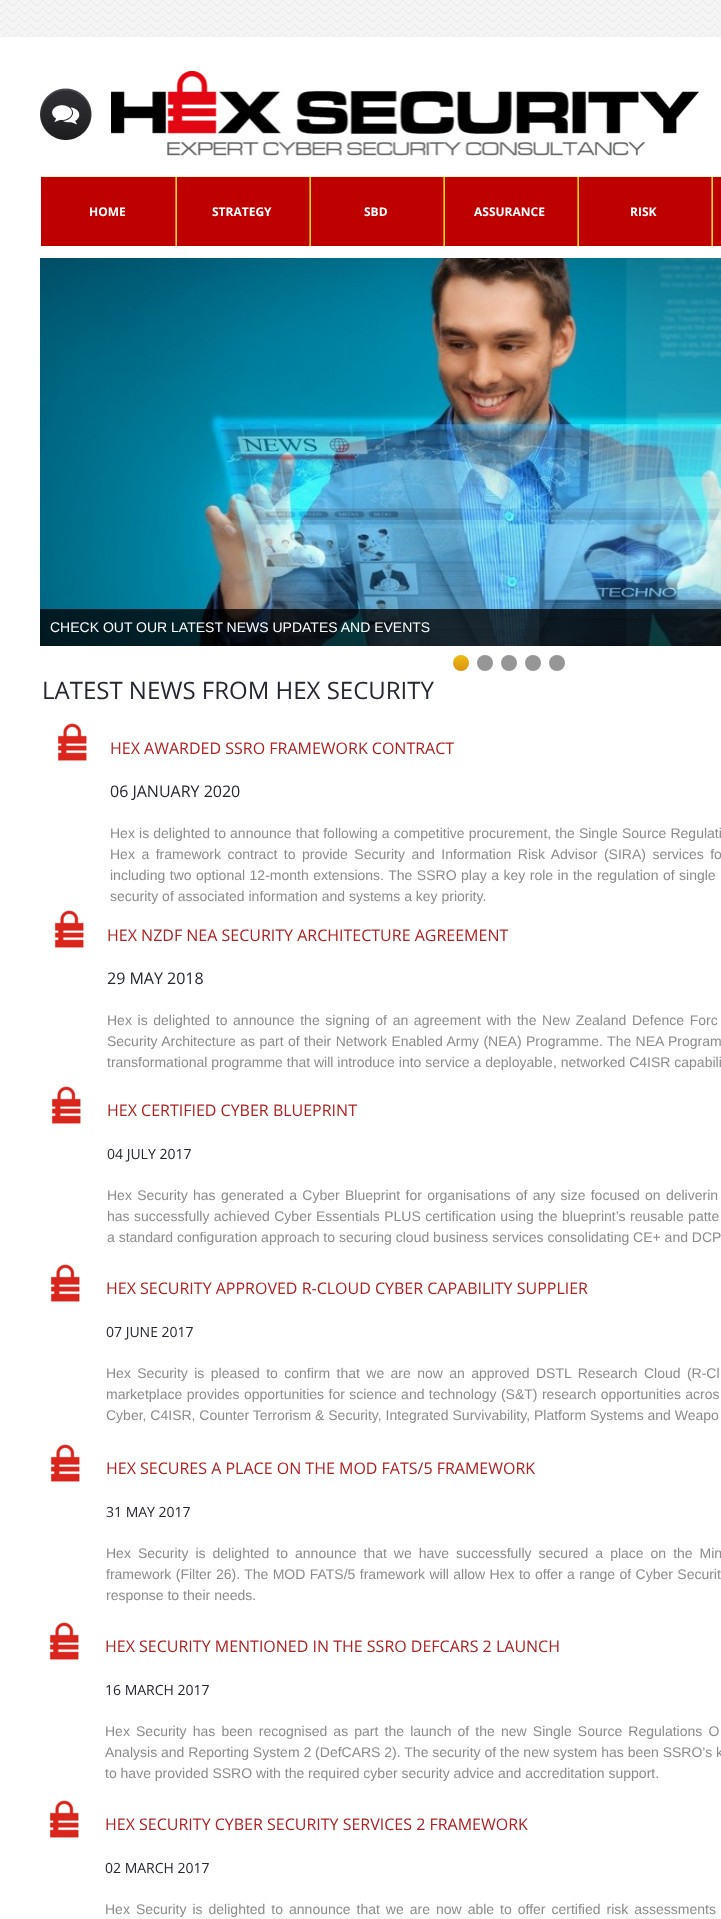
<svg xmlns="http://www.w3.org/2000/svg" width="721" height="1919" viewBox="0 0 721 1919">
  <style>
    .t1 { font: bold 12px Open Sans; fill: #fff; }
    .t2 { font: 14px Liberation Sans; fill: #fff; }
    .t3 { font: 24px Open Sans; fill: #252832; }
    .t4 { font: 16px Open Sans; fill: #b22222; }
    .t5 { font: 16px Open Sans; fill: #252832; }
    .t6 { font: 14px Liberation Sans; fill: #8c8c8c; }
    .t7 { font: 14px Open Sans; fill: #252832; }
  </style>
  <defs>
    <linearGradient id="g1" gradientUnits="userSpaceOnUse" x1="461" y1="655" x2="461" y2="671"><stop offset="0" stop-color="#ebbe16"/><stop offset="1" stop-color="#dd9210"/></linearGradient>
  </defs>
  <rect width="100%" height="100%" fill="#fff"/>
  <image x="0" y="0" width="721" height="37" href="images/1.png"/>
  <image x="40" y="88" width="52" height="52" href="images/2.png"/>
  <image x="111" y="71" width="588" height="85" href="images/3.png"/>
  <rect x="41" y="176" width="680" height="1" fill="#fbf2d0"/>
  <rect x="41" y="177" width="134" height="69" fill="#bf0000"/>
  <text x="89" y="216" class="t1">HOME</text>
  <rect x="177" y="177" width="132" height="69" fill="#bf0000"/>
  <rect x="176" y="177" width="1" height="69" fill="#f3d71d"/>
  <rect x="175" y="177" width="1" height="69" fill="#d9850c"/>
  <text x="212" y="216" class="t1">STRATEGY</text>
  <rect x="311" y="177" width="132" height="69" fill="#bf0000"/>
  <rect x="310" y="177" width="1" height="69" fill="#f3d71d"/>
  <rect x="309" y="177" width="1" height="69" fill="#d9850c"/>
  <text x="364" y="216" class="t1">SBD</text>
  <rect x="445" y="177" width="132" height="69" fill="#bf0000"/>
  <rect x="444" y="177" width="1" height="69" fill="#f3d71d"/>
  <rect x="443" y="177" width="1" height="69" fill="#d9850c"/>
  <text x="474" y="216" class="t1">ASSURANCE</text>
  <rect x="579" y="177" width="132" height="69" fill="#bf0000"/>
  <rect x="578" y="177" width="1" height="69" fill="#f3d71d"/>
  <rect x="577" y="177" width="1" height="69" fill="#d9850c"/>
  <text x="630" y="216" class="t1">RISK</text>
  <rect x="713" y="177" width="8" height="69" fill="#bf0000"/>
  <rect x="712" y="177" width="1" height="69" fill="#f3d71d"/>
  <rect x="711" y="177" width="1" height="69" fill="#d9850c"/>
  <image x="40" y="258" width="681" height="388" href="images/4.png"/>
  <rect x="40" y="609" width="681" height="37" fill="#000000bf"/>
  <text x="50" y="632" class="t2">CHECK OUT OUR LATEST NEWS UPDATES AND EVENTS</text>
  <circle cx="461" cy="663" r="8" fill="url(#g1)"/>
  <circle cx="485" cy="663" r="8" fill="#969696"/>
  <circle cx="509" cy="663" r="8" fill="#969696"/>
  <circle cx="533" cy="663" r="8" fill="#969696"/>
  <circle cx="557" cy="663" r="8" fill="#969696"/>
  <text x="42" y="699" class="t3">LATEST NEWS FROM HEX SECURITY</text>
  <image x="57" y="723" width="30" height="38" href="images/5.png"/>
  <text x="110" y="754" class="t4">HEX AWARDED SSRO FRAMEWORK CONTRACT</text>
  <text x="110" y="797" class="t5">06 JANUARY 2020</text>
  <text x="110" y="838" word-spacing="0.25" class="t6">Hex is delighted to announce that following a competitive procurement, the Single Source Regulati</text>
  <text x="110" y="859" word-spacing="2.6" class="t6">Hex a framework contract to provide Security and Information Risk Advisor (SIRA) services fo</text>
  <text x="110" y="880" word-spacing="0.6" class="t6">including two optional 12-month extensions. The SSRO play a key role in the regulation of single</text>
  <text x="110" y="901" class="t6">security of associated information and systems a key priority.</text>
  <image x="54" y="910" width="30" height="38" href="images/5.png"/>
  <text x="107" y="941" class="t4">HEX NZDF NEA SECURITY ARCHITECTURE AGREEMENT</text>
  <text x="107" y="984" class="t5">29 MAY 2018</text>
  <text x="107" y="1025" word-spacing="1.75" class="t6">Hex is delighted to announce the signing of an agreement with the New Zealand Defence Forc</text>
  <text x="107" y="1046" word-spacing="0.5" class="t6">Security Architecture as part of their Network Enabled Army (NEA) Programme. The NEA Program</text>
  <text x="107" y="1067" class="t6">transformational programme that will introduce into service a deployable, networked C4ISR capabili</text>
  <image x="51" y="1086" width="30" height="38" href="images/5.png"/>
  <text x="107" y="1116" class="t4">HEX CERTIFIED CYBER BLUEPRINT</text>
  <text x="107" y="1159" class="t7">04 JULY 2017</text>
  <text x="107" y="1200" word-spacing="1.4" class="t6">Hex Security has generated a Cyber Blueprint for organisations of any size focused on deliverin</text>
  <text x="107" y="1221" word-spacing="0.5" class="t6">has successfully achieved Cyber Essentials PLUS certification using the blueprint’s reusable patte</text>
  <text x="107" y="1242" class="t6">a standard configuration approach to securing cloud business services consolidating CE+ and DCP</text>
  <image x="50" y="1264" width="30" height="38" href="images/5.png"/>
  <text x="106" y="1294" class="t4">HEX SECURITY APPROVED R-CLOUD CYBER CAPABILITY SUPPLIER</text>
  <text x="106" y="1337" class="t7">07 JUNE 2017</text>
  <text x="106" y="1378" word-spacing="2.5" class="t6">Hex Security is pleased to confirm that we are now an approved DSTL Research Cloud (R-Cl</text>
  <text x="106" y="1399" word-spacing="0.5" class="t6">marketplace provides opportunities for science and technology (S&amp;T) research opportunities acros</text>
  <text x="106" y="1420" class="t6">Cyber, C4ISR, Counter Terrorism &amp; Security, Integrated Survivability, Platform Systems and Weapo</text>
  <image x="50" y="1444" width="30" height="38" href="images/5.png"/>
  <text x="106" y="1474" class="t4">HEX SECURES A PLACE ON THE MOD FATS/5 FRAMEWORK</text>
  <text x="106" y="1517" class="t7">31 MAY 2017</text>
  <text x="106" y="1558" word-spacing="3.1" class="t6">Hex Security is delighted to announce that we have successfully secured a place on the Min</text>
  <text x="106" y="1579" word-spacing="0.5" class="t6">framework (Filter 26). The MOD FATS/5 framework will allow Hex to offer a range of Cyber Securit</text>
  <text x="106" y="1600" class="t6">response to their needs.</text>
  <image x="49" y="1622" width="30" height="38" href="images/5.png"/>
  <text x="105" y="1652" class="t4">HEX SECURITY MENTIONED IN THE SSRO DEFCARS 2 LAUNCH</text>
  <text x="105" y="1695" class="t7">16 MARCH 2017</text>
  <text x="105" y="1736" word-spacing="2.25" class="t6">Hex Security has been recognised as part the launch of the new Single Source Regulations O</text>
  <text x="105" y="1757" class="t6">Analysis and Reporting System 2 (DefCARS 2). The security of the new system has been SSRO’s k</text>
  <text x="105" y="1778" class="t6">to have provided SSRO with the required cyber security advice and accreditation support.</text>
  <image x="49" y="1800" width="30" height="38" href="images/5.png"/>
  <text x="105" y="1830" class="t4">HEX SECURITY CYBER SECURITY SERVICES 2 FRAMEWORK</text>
  <text x="105" y="1873" class="t7">02 MARCH 2017</text>
  <text x="105" y="1914" word-spacing="2.1" class="t6">Hex Security is delighted to announce that we are now able to offer certified risk assessments</text>
</svg>
